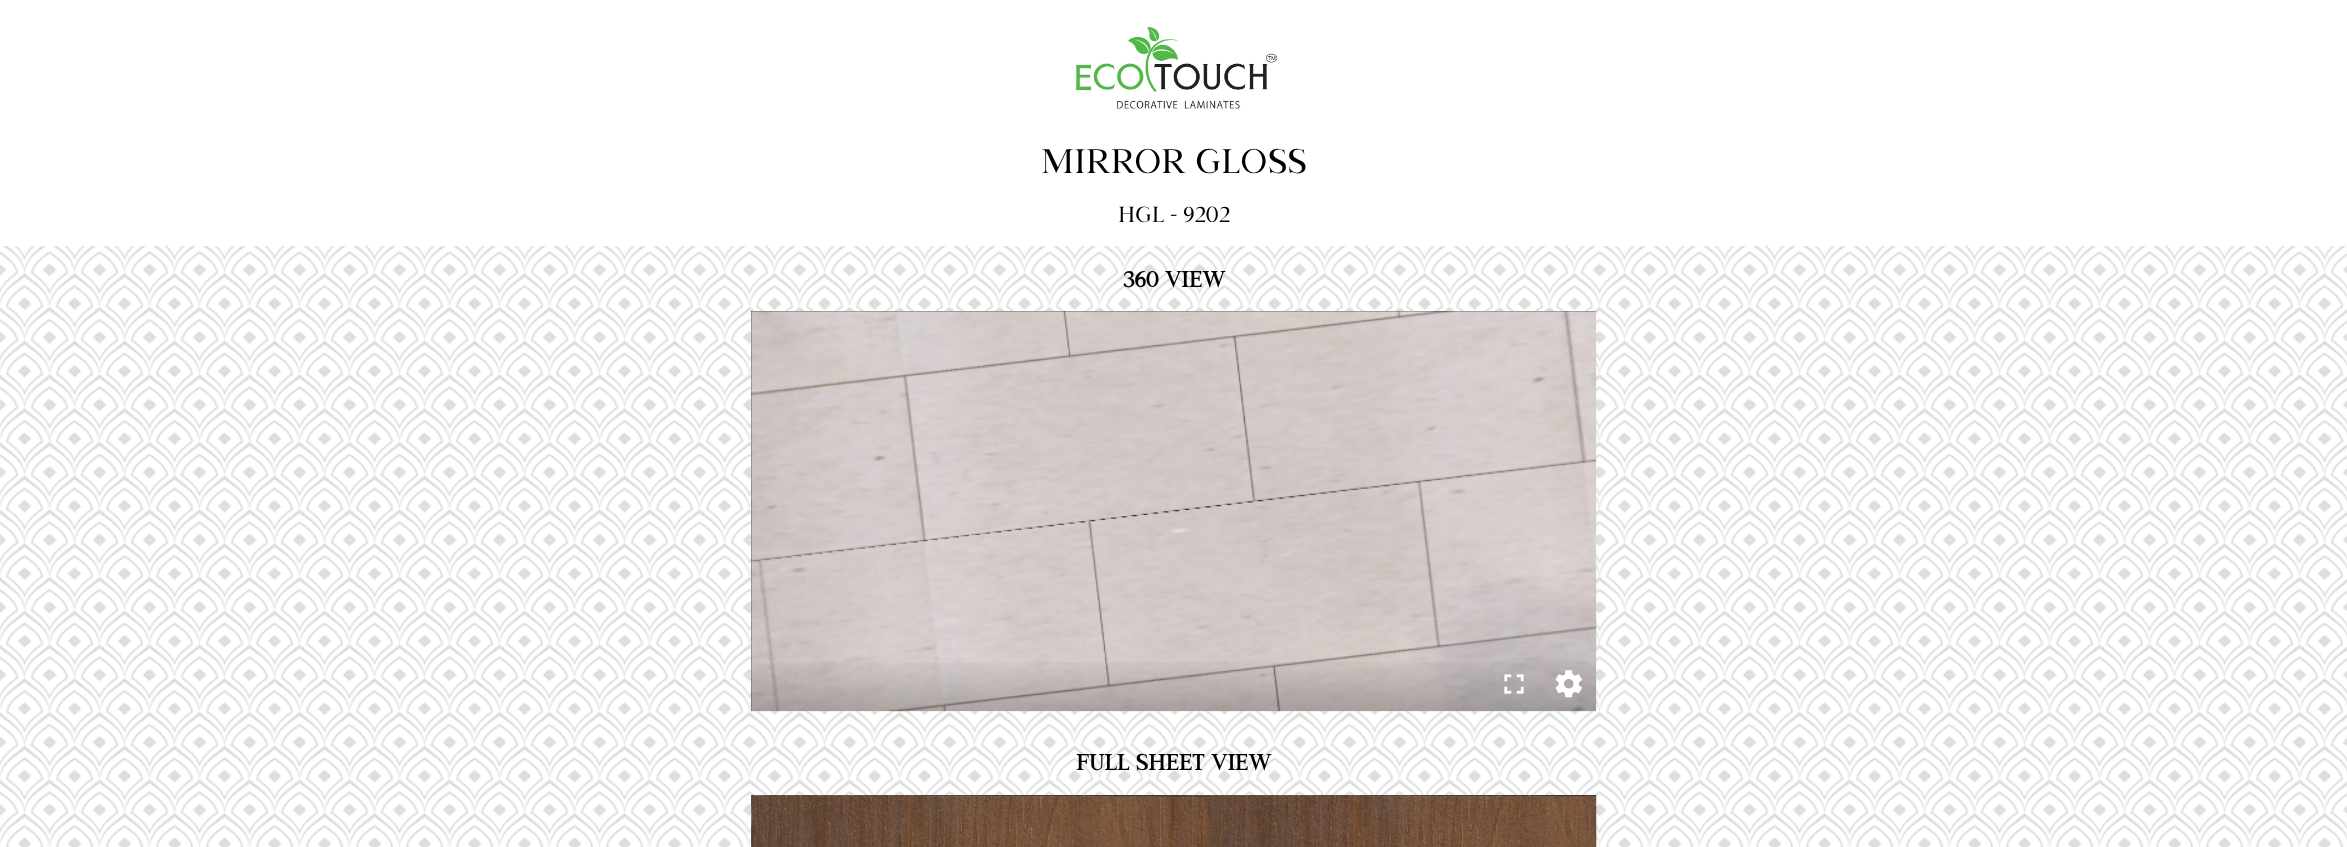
<svg xmlns="http://www.w3.org/2000/svg" width="2347" height="847" viewBox="0 0 2347 847">
  <style>
    .t1 { font: 35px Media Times; fill: #000; }
    .t2 { font: 22.5px Media Times; fill: #000; }
    .t3 { font: bold 22.5px Media Times; fill: #000; }
  </style>
  <defs>
    <linearGradient id="g1" gradientUnits="userSpaceOnUse" x1="1174" y1="711" x2="1174" y2="656"><stop offset="0" stop-color="#000" stop-opacity="0.2"/><stop offset="1" stop-color="#000" stop-opacity="0"/></linearGradient>
  </defs>
  <rect width="100%" height="100%" fill="#fff"/>
  <image x="0" y="246" width="2347" height="601" href="images/1.png"/>
  <image x="1075" y="26" width="203" height="83" href="images/2.png"/>
  <text x="1041" y="173" class="t1">MIRROR GLOSS</text>
  <text x="1118" y="222" class="t2">HGL - 9202</text>
  <text x="1123" y="287" class="t3">360 VIEW</text>
  <rect x="751" y="311" width="845" height="400" fill="#000"/>
  <image x="751" y="311" width="846" height="401" href="images/3.png"/>
  <rect x="751" y="662" width="845" height="49" fill="url(#g1)"/>
  <image x="1504" y="674" width="20" height="20" href="images/4.png"/>
  <image x="1555" y="670" width="27" height="28" href="images/5.png"/>
  <text x="1076" y="770" class="t3">FULL SHEET VIEW</text>
  <image x="751" y="795" width="846" height="52" href="images/6.png"/>
</svg>
